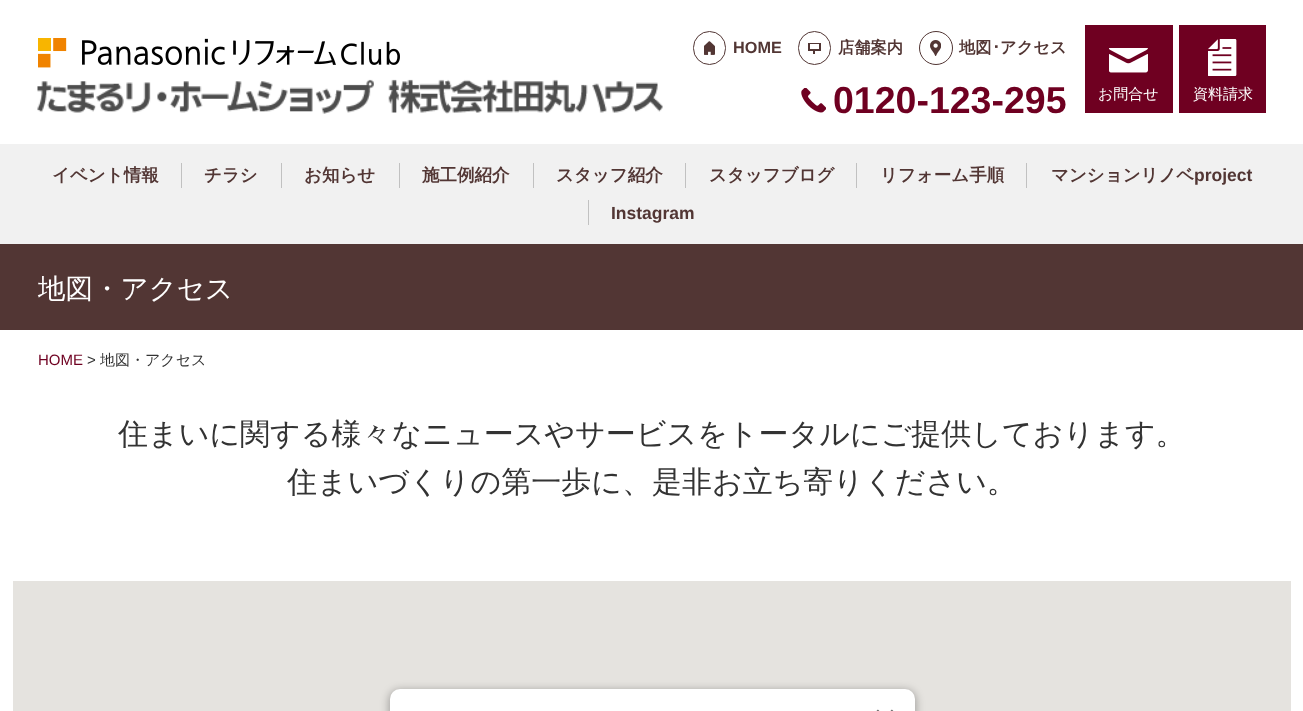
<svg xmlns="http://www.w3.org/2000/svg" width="1303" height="711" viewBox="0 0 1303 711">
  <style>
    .t1 { font: bold 16.25px Liberation Sans; fill: #523634; }
    .t2 { font: bold 16.25px WenQuanYi Zen Hei; fill: #523634; }
    .t3 { font: bold 16.25px IPAPGothic; fill: #523634; }
    .t4 { font: bold 37.5px Liberation Sans; fill: #6f0021; }
    .t5 { font: 500 15px WenQuanYi Zen Hei; fill: #fff; }
    .t6 { font: bold 17.5px WenQuanYi Zen Hei; fill: #523634; }
    .t7 { font: bold 17.5px Liberation Sans; fill: #523634; }
    .t8 { font: 500 27.5px WenQuanYi Zen Hei; fill: #fff; }
    .t9 { font: 15px Liberation Sans; fill: #6f0021; }
    .t10 { font: 15px Liberation Sans; fill: #333; }
    .t11 { font: 500 15px WenQuanYi Zen Hei; fill: #333; }
    .t12 { font: 500 30px WenQuanYi Zen Hei; fill: #333; }
  </style>
  <defs>
    <clipPath id="clip1"><rect x="808" y="43" width="13" height="11"/></clipPath>
  </defs>
  <rect width="100%" height="100%" fill="#523634"/>
  <rect x="0" y="0" width="1303" height="144" fill="#fff"/>
  <image x="38" y="38" width="362" height="30" href="images/1.png"/>
  <image x="37" y="79" width="626" height="35" href="images/2.png"/>
  <image x="704" y="41" width="11" height="14" href="images/3.png"/>
  <rect x="693.5" y="31.5" width="32" height="33" rx="16" fill="none" stroke="#523634"/>
  <text x="733" y="53" class="t1">HOME</text>
  <g clip-path="url(#clip1)">
    <rect x="809" y="43" width="11" height="7" fill="none" stroke="#523634" stroke-width="2"/>
  </g>
  <rect x="813" y="51" width="2" height="3" fill="#523634"/>
  <rect x="798.5" y="31.5" width="32" height="33" rx="16" fill="none" stroke="#523634"/>
  <text x="838" y="53" class="t2">店舗案内</text>
  <image x="930" y="40" width="11" height="16" href="images/4.png"/>
  <circle cx="936" cy="48" r="16.5" fill="none" stroke="#523634"/>
  <text x="959" y="53" class="t2">地図</text>
  <text x="992" y="53" class="t3">･</text>
  <text x="1000" y="53" class="t2">アクセス</text>
  <image x="801" y="88" width="25" height="25" href="images/5.png"/>
  <text x="833" y="113" class="t4">0120-123-295</text>
  <rect x="1085" y="25" width="88" height="88" fill="#6f0021"/>
  <image x="1109" y="48" width="39" height="25" href="images/6.png"/>
  <text x="1098" y="99" class="t5">お問合せ</text>
  <rect x="1179" y="25" width="87" height="88" fill="#6f0021"/>
  <image x="1208" y="39" width="29" height="37" href="images/7.png"/>
  <text x="1193" y="99" class="t5">資料請求</text>
  <rect x="0" y="144" width="1303" height="100" fill="#f1f1f1"/>
  <text x="52" y="181" class="t6">イベント情報</text>
  <rect x="181" y="163" width="1" height="25" fill="#c1c1c1"/>
  <text x="204" y="181" class="t6">チラシ</text>
  <rect x="281" y="163" width="1" height="25" fill="#c1c1c1"/>
  <text x="304" y="181" class="t6">お知らせ</text>
  <rect x="399" y="163" width="1" height="25" fill="#c1c1c1"/>
  <text x="422" y="181" class="t6">施工例紹介</text>
  <rect x="533" y="163" width="1" height="25" fill="#c1c1c1"/>
  <text x="556" y="181" class="t6">スタッフ紹介</text>
  <rect x="685" y="163" width="1" height="25" fill="#c1c1c1"/>
  <text x="709" y="181" class="t6">スタッフブログ</text>
  <rect x="856" y="163" width="1" height="25" fill="#c1c1c1"/>
  <text x="880" y="181" class="t6">リフォーム手順</text>
  <rect x="1026" y="163" width="1" height="25" fill="#c1c1c1"/>
  <text x="1051" y="181" class="t6">マンションリノベ</text>
  <text x="1194" y="181" class="t7">project</text>
  <rect x="588" y="200" width="1" height="25" fill="#c1c1c1"/>
  <text x="611" y="219" class="t7">Instagram</text>
  <text x="38" y="298" class="t8">地図・アクセス</text>
  <rect x="0" y="330" width="1303" height="381" fill="#fff"/>
  <text x="38" y="365" class="t9">HOME</text>
  <text x="87" y="365" class="t10">&gt;</text>
  <text x="100" y="365" class="t11">地図・アクセス</text>
  <text x="118" y="444" class="t12">住まいに関する様々なニュースやサービスをトータルにご提供しております。</text>
  <text x="287" y="492" class="t12">住まいづくりの第一歩に、是非お立ち寄りください。</text>
  <rect x="13" y="581" width="1278" height="130" fill="#e5e3df"/>
  <rect x="389" y="690" width="527" height="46" rx="11" fill="#0000004d" filter="blur(4.5px)"/>
  <rect x="390" y="689" width="525" height="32" rx="10" fill="#fff"/>
  <image x="876" y="709" width="18" height="2" href="images/8.png"/>
</svg>
